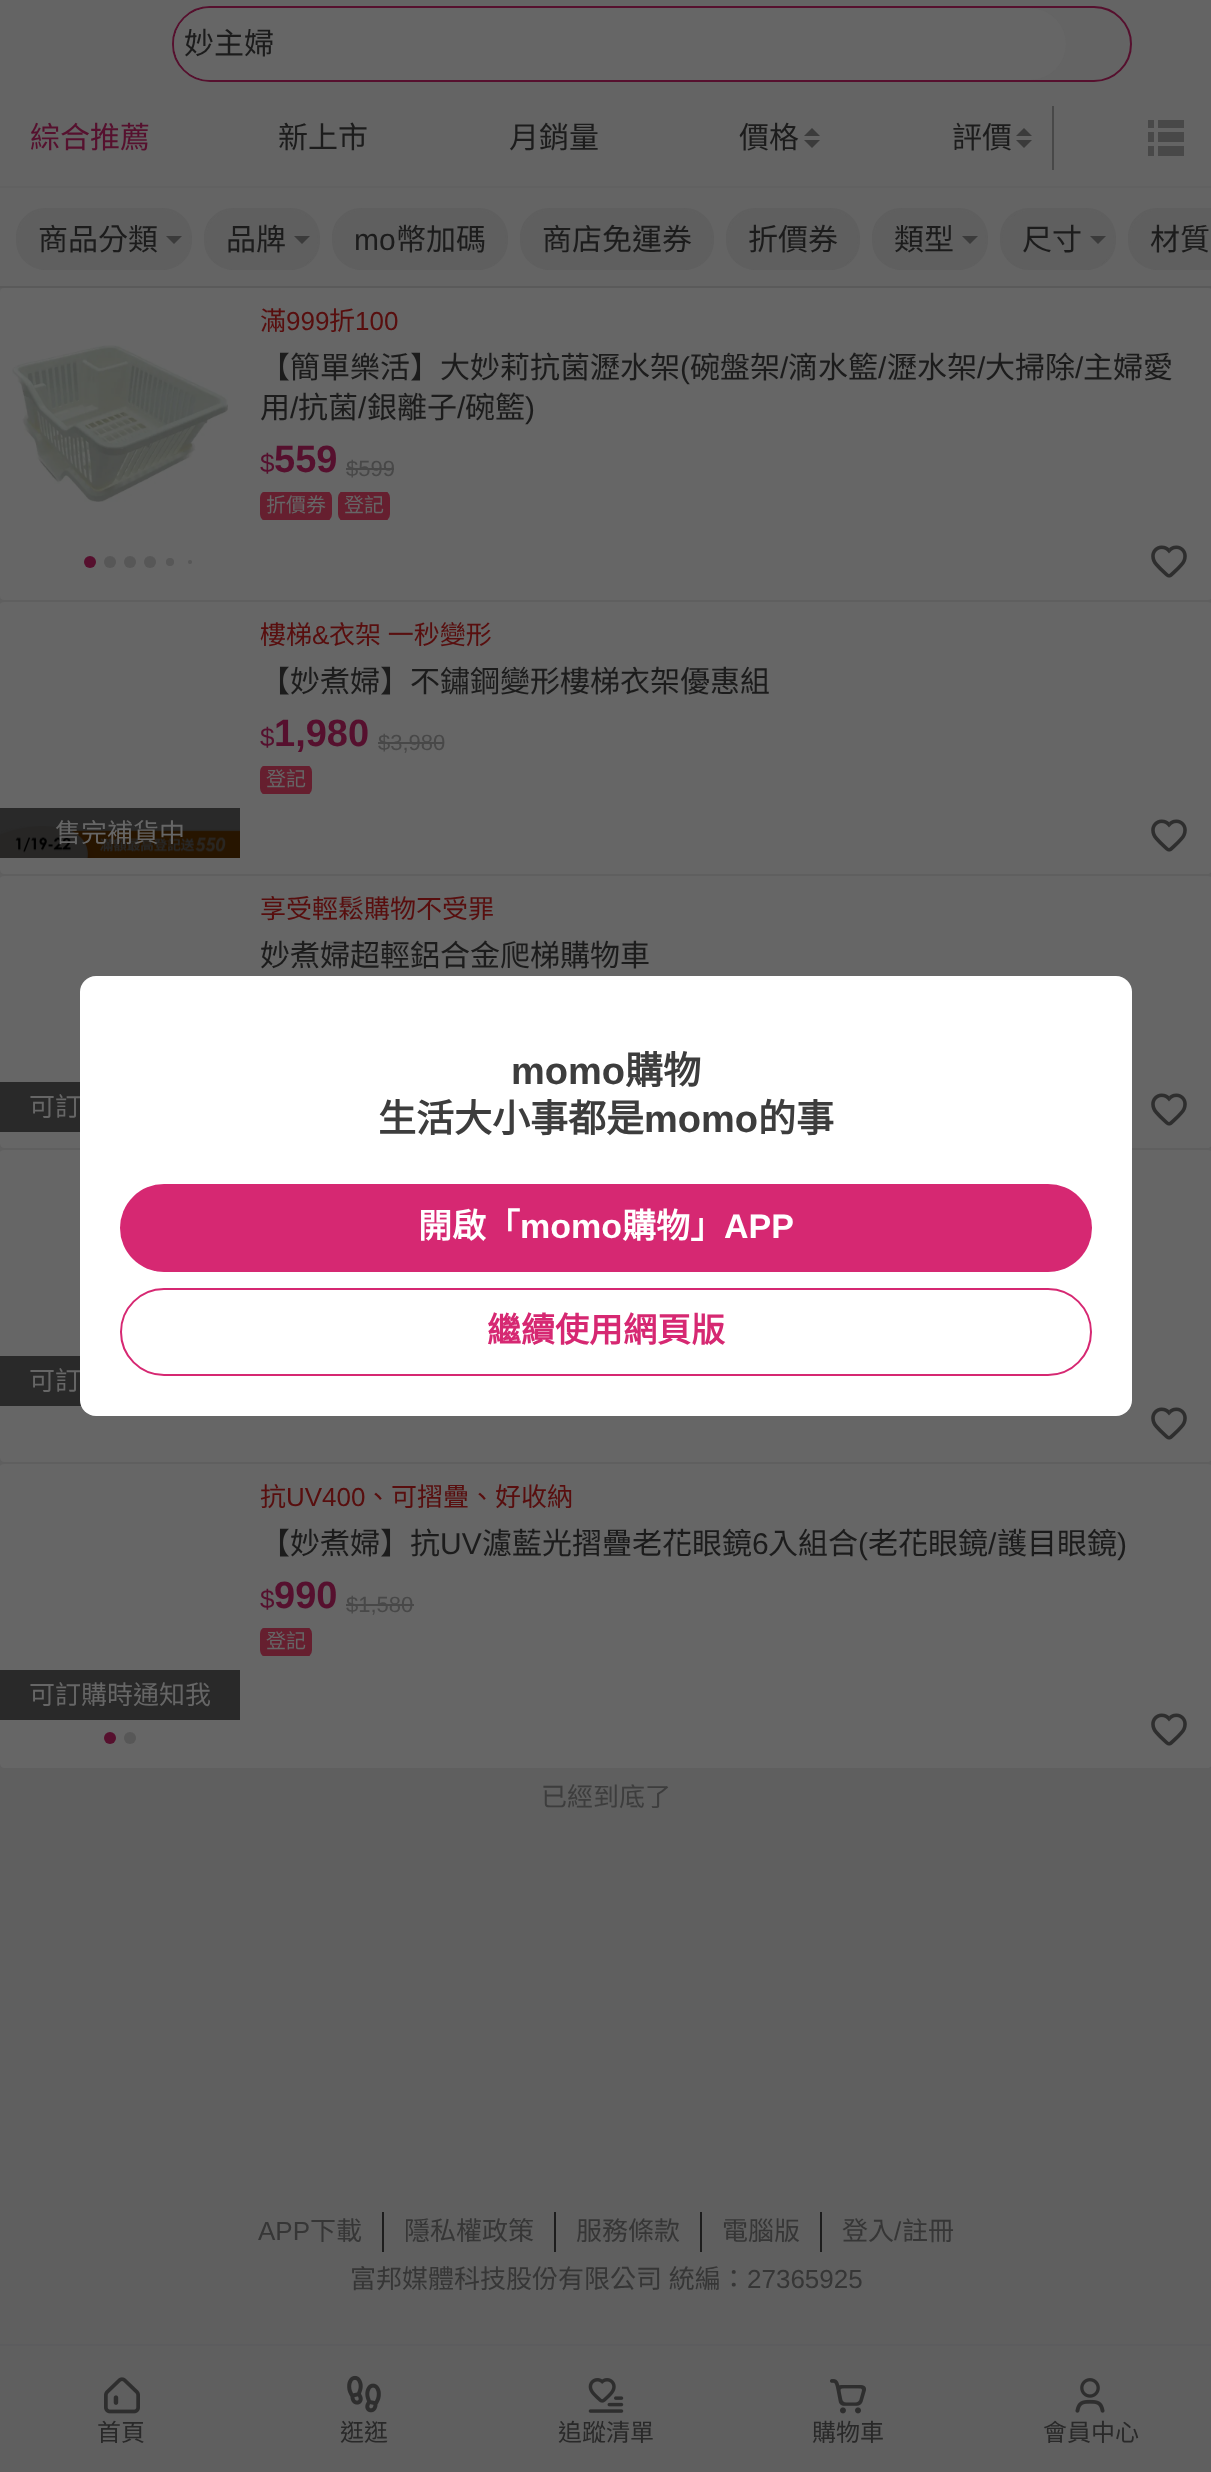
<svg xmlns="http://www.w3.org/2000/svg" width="1211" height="2472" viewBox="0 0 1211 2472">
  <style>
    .t1 { font: 30px Noto Sans CJK TC; fill: #1c1c1c; }
    .t2 { font: 30px Noto Sans CJK TC; fill: #56102e; }
    .t3 { font: 30px Liberation Sans; fill: #1c1c1c; }
    .t4 { font: 26px Noto Sans CJK TC; fill: #580e0e; }
    .t5 { font: 26px Liberation Sans; fill: #580e0e; }
    .t6 { font: 26px Liberation Sans; fill: #56102e; }
    .t7 { font: bold 38px Liberation Sans; fill: #56102e; }
    .t8 { font: 22px Liberation Sans; fill: #484848; }
    .t9 { font: 20px Noto Sans CJK TC; fill: #666; }
    .t10 { font: 26px Noto Sans CJK TC; fill: #666; }
    .t11 { font: 26px Noto Sans CJK TC; fill: #3d3d3d; }
    .t12 { font: bold 38px Liberation Sans; fill: #3d3d3d; }
    .t13 { font: bold 38px Noto Sans CJK TC; fill: #3d3d3d; }
    .t14 { font: bold 34px Noto Sans CJK TC; fill: #fff; }
    .t15 { font: bold 34px Liberation Sans; fill: #fff; }
    .t16 { font: bold 34px Noto Sans CJK TC; fill: #d62872; }
    .t17 { font: 26px Liberation Sans; fill: #363636; }
    .t18 { font: 26px Noto Sans CJK TC; fill: #363636; }
    .t19 { font: 24px Noto Sans CJK TC; fill: #292929; }
  </style>
  <defs>
    <clipPath id="clip1"><rect x="260" y="492" width="932" height="28" rx="4"/></clipPath>
    <clipPath id="clip2"><rect x="260" y="766" width="932" height="28" rx="4"/></clipPath>
    <clipPath id="clip3"><rect x="260" y="1628" width="932" height="28" rx="4"/></clipPath>
  </defs>
  <rect width="100%" height="100%" fill="#5f5f5f"/>
  <rect x="0" y="0" width="1211" height="286" fill="#646464"/>
  <rect x="173" y="7" width="958" height="74" rx="37" fill="none" stroke="#56102e" stroke-width="2"/>
  <rect x="174" y="8" width="892" height="72" rx="36" fill="#666"/>
  <text x="184" y="54" class="t1">妙主婦</text>
  <rect x="0" y="186" width="1211" height="2" fill="#616161"/>
  <text x="30" y="148" class="t2">綜合推薦</text>
  <text x="278" y="148" class="t1">新上市</text>
  <text x="509" y="148" class="t1">月銷量</text>
  <text x="739" y="148" class="t1">價格</text>
  <path d="M820 136H804L812 128ZM804 140H820L812 148Z" fill="#3b3b3b"/>
  <text x="952" y="148" class="t1">評價</text>
  <path d="M1032 136H1016L1024 128ZM1016 140H1032L1024 148Z" fill="#3b3b3b"/>
  <rect x="1052" y="106" width="2" height="64" fill="#484848"/>
  <rect x="1148" y="120" width="36" height="36" fill="#484848"/>
  <rect x="1148" y="128" width="36" height="4" fill="#646464"/>
  <rect x="1148" y="142" width="36" height="4" fill="#646464"/>
  <rect x="1154" y="120" width="4" height="36" fill="#646464"/>
  <rect x="0" y="286" width="1211" height="2" fill="#5a5a5a"/>
  <path d="M46 210H162C177 210 190 223 190 238V240C190 257 177 270 162 270H46C31 270 18 257 18 240V238C18 223 31 210 46 210Z" fill="#5f5f5f"/>
  <path d="M46 208H162C179 208 192 221 192 238V240C192 257 179 270 162 270H46C29 270 16 257 16 240V238C16 221 29 208 46 208ZM46 210H162C177 210 190 223 190 238V240C190 257 177 270 162 270H46C31 270 18 257 18 240V238C18 223 31 210 46 210Z" fill="#5f5f5f" fill-rule="evenodd"/>
  <text x="38" y="250" class="t1">商品分類</text>
  <path d="M166 236H182L174 244Z" fill="#3b3b3b"/>
  <path d="M234 210H290C305 210 318 223 318 238V240C318 257 305 270 290 270H234C219 270 206 257 206 240V238C206 223 219 210 234 210Z" fill="#5f5f5f"/>
  <path d="M234 208H290C307 208 320 221 320 238V240C320 257 307 270 290 270H234C217 270 204 257 204 240V238C204 221 217 208 234 208ZM234 210H290C305 210 318 223 318 238V240C318 257 305 270 290 270H234C219 270 206 257 206 240V238C206 223 219 210 234 210Z" fill="#5f5f5f" fill-rule="evenodd"/>
  <text x="226" y="250" class="t1">品牌</text>
  <path d="M294 236H310L302 244Z" fill="#3b3b3b"/>
  <path d="M362 210H478C493 210 506 223 506 238V240C506 257 493 270 478 270H362C347 270 334 257 334 240V238C334 223 347 210 362 210Z" fill="#5f5f5f"/>
  <path d="M362 208H478C495 208 508 221 508 238V240C508 257 495 270 478 270H362C345 270 332 257 332 240V238C332 221 345 208 362 208ZM362 210H478C493 210 506 223 506 238V240C506 257 493 270 478 270H362C347 270 334 257 334 240V238C334 223 347 210 362 210Z" fill="#5f5f5f" fill-rule="evenodd"/>
  <text x="354" y="250" class="t3">mo</text>
  <text x="396" y="250" class="t1">幣加碼</text>
  <path d="M550 210H684C699 210 712 223 712 238V240C712 257 699 270 684 270H550C535 270 522 257 522 240V238C522 223 535 210 550 210Z" fill="#5f5f5f"/>
  <path d="M550 208H684C701 208 714 221 714 238V240C714 257 701 270 684 270H550C533 270 520 257 520 240V238C520 221 533 208 550 208ZM550 210H684C699 210 712 223 712 238V240C712 257 699 270 684 270H550C535 270 522 257 522 240V238C522 223 535 210 550 210Z" fill="#5f5f5f" fill-rule="evenodd"/>
  <text x="542" y="250" class="t1">商店免運券</text>
  <path d="M756 210H830C845 210 858 223 858 238V240C858 257 845 270 830 270H756C741 270 728 257 728 240V238C728 223 741 210 756 210Z" fill="#5f5f5f"/>
  <path d="M756 208H830C847 208 860 221 860 238V240C860 257 847 270 830 270H756C739 270 726 257 726 240V238C726 221 739 208 756 208ZM756 210H830C845 210 858 223 858 238V240C858 257 845 270 830 270H756C741 270 728 257 728 240V238C728 223 741 210 756 210Z" fill="#5f5f5f" fill-rule="evenodd"/>
  <text x="748" y="250" class="t1">折價券</text>
  <path d="M902 210H958C973 210 986 223 986 238V240C986 257 973 270 958 270H902C887 270 874 257 874 240V238C874 223 887 210 902 210Z" fill="#5f5f5f"/>
  <path d="M902 208H958C975 208 988 221 988 238V240C988 257 975 270 958 270H902C885 270 872 257 872 240V238C872 221 885 208 902 208ZM902 210H958C973 210 986 223 986 238V240C986 257 973 270 958 270H902C887 270 874 257 874 240V238C874 223 887 210 902 210Z" fill="#5f5f5f" fill-rule="evenodd"/>
  <text x="894" y="250" class="t1">類型</text>
  <path d="M962 236H978L970 244Z" fill="#3b3b3b"/>
  <path d="M1030 210H1086C1101 210 1114 223 1114 238V240C1114 257 1101 270 1086 270H1030C1015 270 1002 257 1002 240V238C1002 223 1015 210 1030 210Z" fill="#5f5f5f"/>
  <path d="M1030 208H1086C1103 208 1116 221 1116 238V240C1116 257 1103 270 1086 270H1030C1013 270 1000 257 1000 240V238C1000 221 1013 208 1030 208ZM1030 210H1086C1101 210 1114 223 1114 238V240C1114 257 1101 270 1086 270H1030C1015 270 1002 257 1002 240V238C1002 223 1015 210 1030 210Z" fill="#5f5f5f" fill-rule="evenodd"/>
  <text x="1022" y="250" class="t1">尺寸</text>
  <path d="M1090 236H1106L1098 244Z" fill="#3b3b3b"/>
  <path d="M1158 210H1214C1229 210 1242 223 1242 238V240C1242 257 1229 270 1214 270H1158C1143 270 1130 257 1130 240V238C1130 223 1143 210 1158 210Z" fill="#5f5f5f"/>
  <path d="M1158 208H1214C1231 208 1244 221 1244 238V240C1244 257 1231 270 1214 270H1158C1141 270 1128 257 1128 240V238C1128 221 1141 208 1158 208ZM1158 210H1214C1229 210 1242 223 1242 238V240C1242 257 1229 270 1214 270H1158C1143 270 1130 257 1130 240V238C1130 223 1143 210 1158 210Z" fill="#5f5f5f" fill-rule="evenodd"/>
  <text x="1150" y="250" class="t1">材質</text>
  <rect x="0" y="288" width="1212" height="312" rx="4" fill="#666"/>
  <image x="12" y="345" width="216" height="157" href="images/1.png"/>
  <circle cx="90" cy="562" r="6" fill="#56102e"/>
  <circle cx="110" cy="562" r="6" fill="#575757"/>
  <circle cx="130" cy="562" r="6" fill="#575757"/>
  <circle cx="150" cy="562" r="6" fill="#575757"/>
  <circle cx="170" cy="562" r="4" fill="#575757"/>
  <circle cx="190" cy="562" r="2" fill="#575757"/>
  <text x="260" y="330" class="t4">滿</text>
  <text x="286" y="330" class="t5">999</text>
  <text x="329" y="330" class="t4">折</text>
  <text x="355" y="330" class="t5">100</text>
  <text x="260" y="378" class="t1">【簡單樂活】大妙莉抗菌瀝水架</text>
  <text x="680" y="378" class="t3">(</text>
  <text x="690" y="378" class="t1">碗盤架</text>
  <text x="780" y="378" class="t3">/</text>
  <text x="788" y="378" class="t1">滴水籃</text>
  <text x="878" y="378" class="t3">/</text>
  <text x="887" y="378" class="t1">瀝水架</text>
  <text x="977" y="378" class="t3">/</text>
  <text x="985" y="378" class="t1">大掃除</text>
  <text x="1075" y="378" class="t3">/</text>
  <text x="1083" y="378" class="t1">主婦愛</text>
  <text x="260" y="418" class="t1">用</text>
  <text x="290" y="418" class="t3">/</text>
  <text x="298" y="418" class="t1">抗菌</text>
  <text x="358" y="418" class="t3">/</text>
  <text x="367" y="418" class="t1">銀離子</text>
  <text x="457" y="418" class="t3">/</text>
  <text x="465" y="418" class="t1">碗籃</text>
  <text x="525" y="418" class="t3">)</text>
  <text x="260" y="472" class="t6">$</text>
  <text x="274" y="472" class="t7">559</text>
  <text x="346" y="476" class="t8">$599</text>
  <rect x="346" y="468" width="48" height="2" fill="#484848"/>
  <g clip-path="url(#clip1)">
    <rect x="260" y="490" width="72" height="32" rx="8" fill="#661f2f"/>
  </g>
  <text x="266" y="512" class="t9">折價券</text>
  <g clip-path="url(#clip1)">
    <rect x="338" y="490" width="52" height="32" rx="8" fill="#661f2f"/>
  </g>
  <text x="344" y="512" class="t9">登記</text>
  <image x="1151" y="545" width="36" height="33" href="images/2.png"/>
  <path d="M4 602H1208C1210 602 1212 603 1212 604V870C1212 872 1210 874 1208 874H4C2 874 0 872 0 870V604C0 603 2 602 4 602Z" fill="#666"/>
  <text x="260" y="644" class="t4">樓梯</text>
  <text x="312" y="644" class="t5">&amp;</text>
  <text x="329" y="644" word-spacing="1" class="t4">衣架 一秒變形</text>
  <text x="260" y="692" class="t1">【妙煮婦】不鏽鋼變形樓梯衣架優惠組</text>
  <text x="260" y="746" class="t6">$</text>
  <text x="274" y="746" class="t7">1,980</text>
  <text x="378" y="750" class="t8">$3,980</text>
  <rect x="378" y="742" width="66" height="2" fill="#484848"/>
  <g clip-path="url(#clip2)">
    <rect x="260" y="764" width="52" height="32" rx="8" fill="#661f2f"/>
  </g>
  <text x="266" y="786" class="t9">登記</text>
  <image x="1151" y="819" width="36" height="33" href="images/2.png"/>
  <image x="0" y="826" width="240" height="32" href="images/3.png"/>
  <rect x="0" y="808" width="240" height="50" fill="#00000099"/>
  <text x="55" y="842" class="t10">售完補貨中</text>
  <path d="M4 876H1208C1210 876 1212 877 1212 878V1144C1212 1146 1210 1148 1208 1148H4C2 1148 0 1146 0 1144V878C0 877 2 876 4 876Z" fill="#666"/>
  <text x="260" y="918" class="t4">享受輕鬆購物不受罪</text>
  <text x="260" y="966" class="t1">妙煮婦超輕鋁合金爬梯購物車</text>
  <image x="1151" y="1093" width="36" height="33" href="images/2.png"/>
  <rect x="0" y="1082" width="80" height="50" fill="#292929"/>
  <text x="29" y="1116" class="t10">可訂</text>
  <path d="M4 1150H1208C1210 1150 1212 1151 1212 1152V1458C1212 1460 1210 1462 1208 1462H4C2 1462 0 1460 0 1458V1152C0 1151 2 1150 4 1150Z" fill="#666"/>
  <rect x="0" y="1356" width="82" height="50" fill="#292929"/>
  <text x="29" y="1390" class="t10">可訂</text>
  <image x="1151" y="1407" width="36" height="33" href="images/2.png"/>
  <path d="M4 1464H1208C1210 1464 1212 1465 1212 1466V1764C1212 1766 1210 1768 1208 1768H4C2 1768 0 1766 0 1764V1466C0 1465 2 1464 4 1464Z" fill="#666"/>
  <text x="260" y="1506" class="t4">抗</text>
  <text x="286" y="1506" class="t5">UV400</text>
  <text x="365" y="1506" class="t4">、可摺疊、好收納</text>
  <text x="260" y="1554" class="t1">【妙煮婦】抗</text>
  <text x="440" y="1554" class="t3">UV</text>
  <text x="482" y="1554" class="t1">濾藍光摺疊老花眼鏡</text>
  <text x="752" y="1554" class="t3">6</text>
  <text x="768" y="1554" class="t1">入組合</text>
  <text x="858" y="1554" class="t3">(</text>
  <text x="868" y="1554" class="t1">老花眼鏡</text>
  <text x="988" y="1554" class="t3">/</text>
  <text x="997" y="1554" class="t1">護目眼鏡</text>
  <text x="1117" y="1554" class="t3">)</text>
  <text x="260" y="1608" class="t6">$</text>
  <text x="274" y="1608" class="t7">990</text>
  <text x="346" y="1612" class="t8">$1,580</text>
  <rect x="346" y="1604" width="68" height="2" fill="#484848"/>
  <g clip-path="url(#clip3)">
    <rect x="260" y="1626" width="52" height="32" rx="8" fill="#661f2f"/>
  </g>
  <text x="266" y="1648" class="t9">登記</text>
  <image x="1151" y="1713" width="36" height="33" href="images/2.png"/>
  <rect x="0" y="1670" width="240" height="50" fill="#292929"/>
  <text x="29" y="1704" class="t10">可訂購時通知我</text>
  <circle cx="110" cy="1738" r="6" fill="#56102e"/>
  <circle cx="130" cy="1738" r="6" fill="#575757"/>
  <text x="541" y="1806" class="t11">已經到底了</text>
  <rect x="80" y="976" width="1052" height="440" rx="16" fill="#fff"/>
  <text x="511" y="1084" class="t12">momo</text>
  <text x="625" y="1084" class="t13">購物</text>
  <text x="378" y="1132" class="t13">生活大小事都是</text>
  <text x="644" y="1132" class="t12">momo</text>
  <text x="758" y="1132" class="t13">的事</text>
  <rect x="120" y="1184" width="972" height="88" rx="44" fill="#d62872"/>
  <text x="418" y="1238" class="t14">開啟「</text>
  <text x="520" y="1238" class="t15">momo</text>
  <text x="622" y="1238" class="t14">購物」</text>
  <text x="724" y="1238" class="t15">APP</text>
  <rect x="121" y="1289" width="970" height="86" rx="43" fill="none" stroke="#d62872" stroke-width="2"/>
  <text x="487" y="1342" class="t16">繼續使用網頁版</text>
  <text x="258" y="2240" class="t17">APP</text>
  <text x="310" y="2240" class="t18">下載</text>
  <rect x="382" y="2212" width="2" height="40" fill="#1d1d1d"/>
  <text x="404" y="2240" class="t18">隱私權政策</text>
  <rect x="554" y="2212" width="2" height="40" fill="#1d1d1d"/>
  <text x="576" y="2240" class="t18">服務條款</text>
  <rect x="700" y="2212" width="2" height="40" fill="#1d1d1d"/>
  <text x="722" y="2240" class="t18">電腦版</text>
  <rect x="820" y="2212" width="2" height="40" fill="#1d1d1d"/>
  <text x="842" y="2240" class="t18">登入</text>
  <text x="894" y="2240" class="t17">/</text>
  <text x="902" y="2240" class="t18">註冊</text>
  <text x="350" y="2288" word-spacing="1" class="t18">富邦媒體科技股份有限公司 統編：</text>
  <text x="747" y="2288" class="t17">27365925</text>
  <rect x="0" y="2344" width="1211" height="2" fill="#5c5c5e"/>
  <image x="104" y="2377" width="36" height="37" href="images/4.png"/>
  <text x="97" y="2441" class="t19">首頁</text>
  <image x="347" y="2375" width="34" height="38" href="images/5.png"/>
  <text x="340" y="2441" class="t19">逛逛</text>
  <image x="588" y="2378" width="36" height="35" href="images/6.png"/>
  <text x="558" y="2441" class="t19">追蹤清單</text>
  <image x="830" y="2379" width="36" height="35" href="images/7.png"/>
  <text x="812" y="2441" class="t19">購物車</text>
  <image x="1075" y="2378" width="30" height="35" href="images/8.png"/>
  <text x="1043" y="2441" class="t19">會員中心</text>
</svg>
